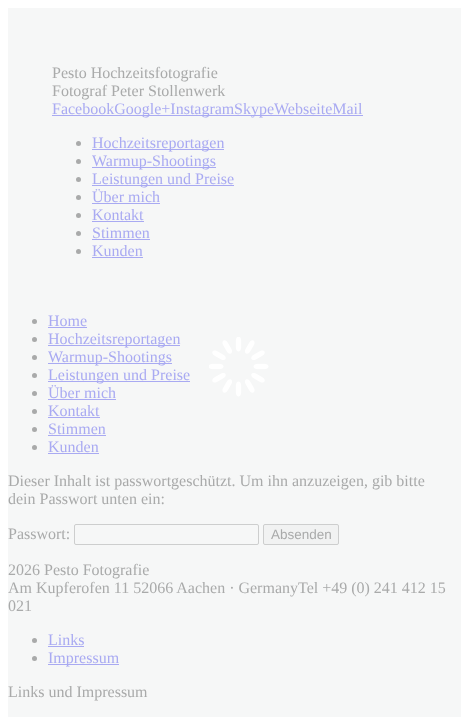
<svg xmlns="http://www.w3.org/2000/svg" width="461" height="717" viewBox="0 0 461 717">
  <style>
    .t1 { font: 16px Liberation Serif; fill: #a9aaaa; }
    .t2 { font: 16px Liberation Serif; fill: #a9aaf2; }
    .t3 { font: 13.5px Liberation Sans; fill: #a9aaaa; }
  </style>
  <rect width="100%" height="100%" fill="#fff"/>
  <rect x="8" y="8" width="453" height="709" fill="#f6f7f7"/>
  <text x="52" y="78" class="t1">Pesto Hochzeitsfotografie</text>
  <text x="52" y="96" class="t1">Fotograf Peter Stollenwerk</text>
  <rect x="52" y="115" width="182" height="1" fill="#a9aaf2"/>
  <text x="52" y="114" class="t2">FacebookGoogle+Instagram</text>
  <rect x="234" y="115" width="129" height="1" fill="#a9aaf2"/>
  <text x="234" y="114" class="t2">SkypeWebseiteMail</text>
  <circle cx="78.5" cy="143.5" r="2.5" fill="#a9aaaa"/>
  <rect x="92" y="149" width="132" height="1" fill="#a9aaf2"/>
  <text x="92" y="148" class="t2">Hochzeitsreportagen</text>
  <circle cx="78.5" cy="161.5" r="2.5" fill="#a9aaaa"/>
  <rect x="92" y="167" width="124" height="1" fill="#a9aaf2"/>
  <text x="92" y="166" class="t2">Warmup-Shootings</text>
  <circle cx="78.5" cy="179.5" r="2.5" fill="#a9aaaa"/>
  <rect x="92" y="185" width="142" height="1" fill="#a9aaf2"/>
  <text x="92" y="184" class="t2">Leistungen und Preise</text>
  <circle cx="78.5" cy="197.5" r="2.5" fill="#a9aaaa"/>
  <text x="92" y="202" class="t2">Über mich</text>
  <rect x="92" y="203" width="68" height="1" fill="#a9aaf2"/>
  <circle cx="78.5" cy="215.5" r="2.5" fill="#a9aaaa"/>
  <text x="92" y="220" class="t2">Kontakt</text>
  <rect x="92" y="221" width="52" height="1" fill="#a9aaf2"/>
  <circle cx="78.5" cy="233.5" r="2.5" fill="#a9aaaa"/>
  <text x="92" y="238" class="t2">Stimmen</text>
  <rect x="92" y="239" width="58" height="1" fill="#a9aaf2"/>
  <circle cx="78.5" cy="251.5" r="2.5" fill="#a9aaaa"/>
  <text x="92" y="256" class="t2">Kunden</text>
  <rect x="92" y="257" width="51" height="1" fill="#a9aaf2"/>
  <circle cx="34.5" cy="321.5" r="2.5" fill="#a9aaaa"/>
  <text x="48" y="326" class="t2">Home</text>
  <rect x="48" y="327" width="39" height="1" fill="#a9aaf2"/>
  <circle cx="34.5" cy="339.5" r="2.5" fill="#a9aaaa"/>
  <rect x="48" y="345" width="132" height="1" fill="#a9aaf2"/>
  <text x="48" y="344" class="t2">Hochzeitsreportagen</text>
  <circle cx="34.5" cy="357.5" r="2.5" fill="#a9aaaa"/>
  <rect x="48" y="363" width="124" height="1" fill="#a9aaf2"/>
  <text x="48" y="362" class="t2">Warmup-Shootings</text>
  <circle cx="34.5" cy="375.5" r="2.5" fill="#a9aaaa"/>
  <rect x="48" y="381" width="142" height="1" fill="#a9aaf2"/>
  <text x="48" y="380" class="t2">Leistungen und Preise</text>
  <circle cx="34.5" cy="393.5" r="2.5" fill="#a9aaaa"/>
  <text x="48" y="398" class="t2">Über mich</text>
  <rect x="48" y="399" width="68" height="1" fill="#a9aaf2"/>
  <circle cx="34.5" cy="411.5" r="2.5" fill="#a9aaaa"/>
  <text x="48" y="416" class="t2">Kontakt</text>
  <rect x="48" y="417" width="52" height="1" fill="#a9aaf2"/>
  <circle cx="34.5" cy="429.5" r="2.5" fill="#a9aaaa"/>
  <text x="48" y="434" class="t2">Stimmen</text>
  <rect x="48" y="435" width="58" height="1" fill="#a9aaf2"/>
  <circle cx="34.5" cy="447.5" r="2.5" fill="#a9aaaa"/>
  <text x="48" y="452" class="t2">Kunden</text>
  <rect x="48" y="453" width="51" height="1" fill="#a9aaf2"/>
  <text x="8" y="486" class="t1">Dieser Inhalt ist passwortgeschützt. Um ihn anzuzeigen, gib bitte</text>
  <text x="8" y="504" class="t1">dein Passwort unten ein:</text>
  <text x="8" y="539" class="t1">Passwort:</text>
  <rect x="74.5" y="524.5" width="184" height="20" rx="1.5" fill="none" stroke="#cdcece"/>
  <rect x="263.5" y="524.5" width="75" height="20" rx="1.5" fill="#f1f2f2" stroke="#cdcece"/>
  <text x="271" y="539" class="t3">Absenden</text>
  <text x="8" y="575" class="t1">2026 Pesto Fotografie</text>
  <text x="8" y="593" class="t1">Am Kupferofen 11 52066 Aachen · GermanyTel +49 (0) 241 412 15</text>
  <text x="8" y="611" class="t1">021</text>
  <circle cx="34.5" cy="640.5" r="2.5" fill="#a9aaaa"/>
  <text x="48" y="645" class="t2">Links</text>
  <rect x="48" y="646" width="36" height="1" fill="#a9aaf2"/>
  <circle cx="34.5" cy="658.5" r="2.5" fill="#a9aaaa"/>
  <rect x="48" y="664" width="71" height="1" fill="#a9aaf2"/>
  <text x="48" y="663" class="t2">Impressum</text>
  <text x="8" y="697" class="t1">Links und Impressum</text>
  <image x="209" y="337" width="60" height="60" href="images/1.png"/>
</svg>
